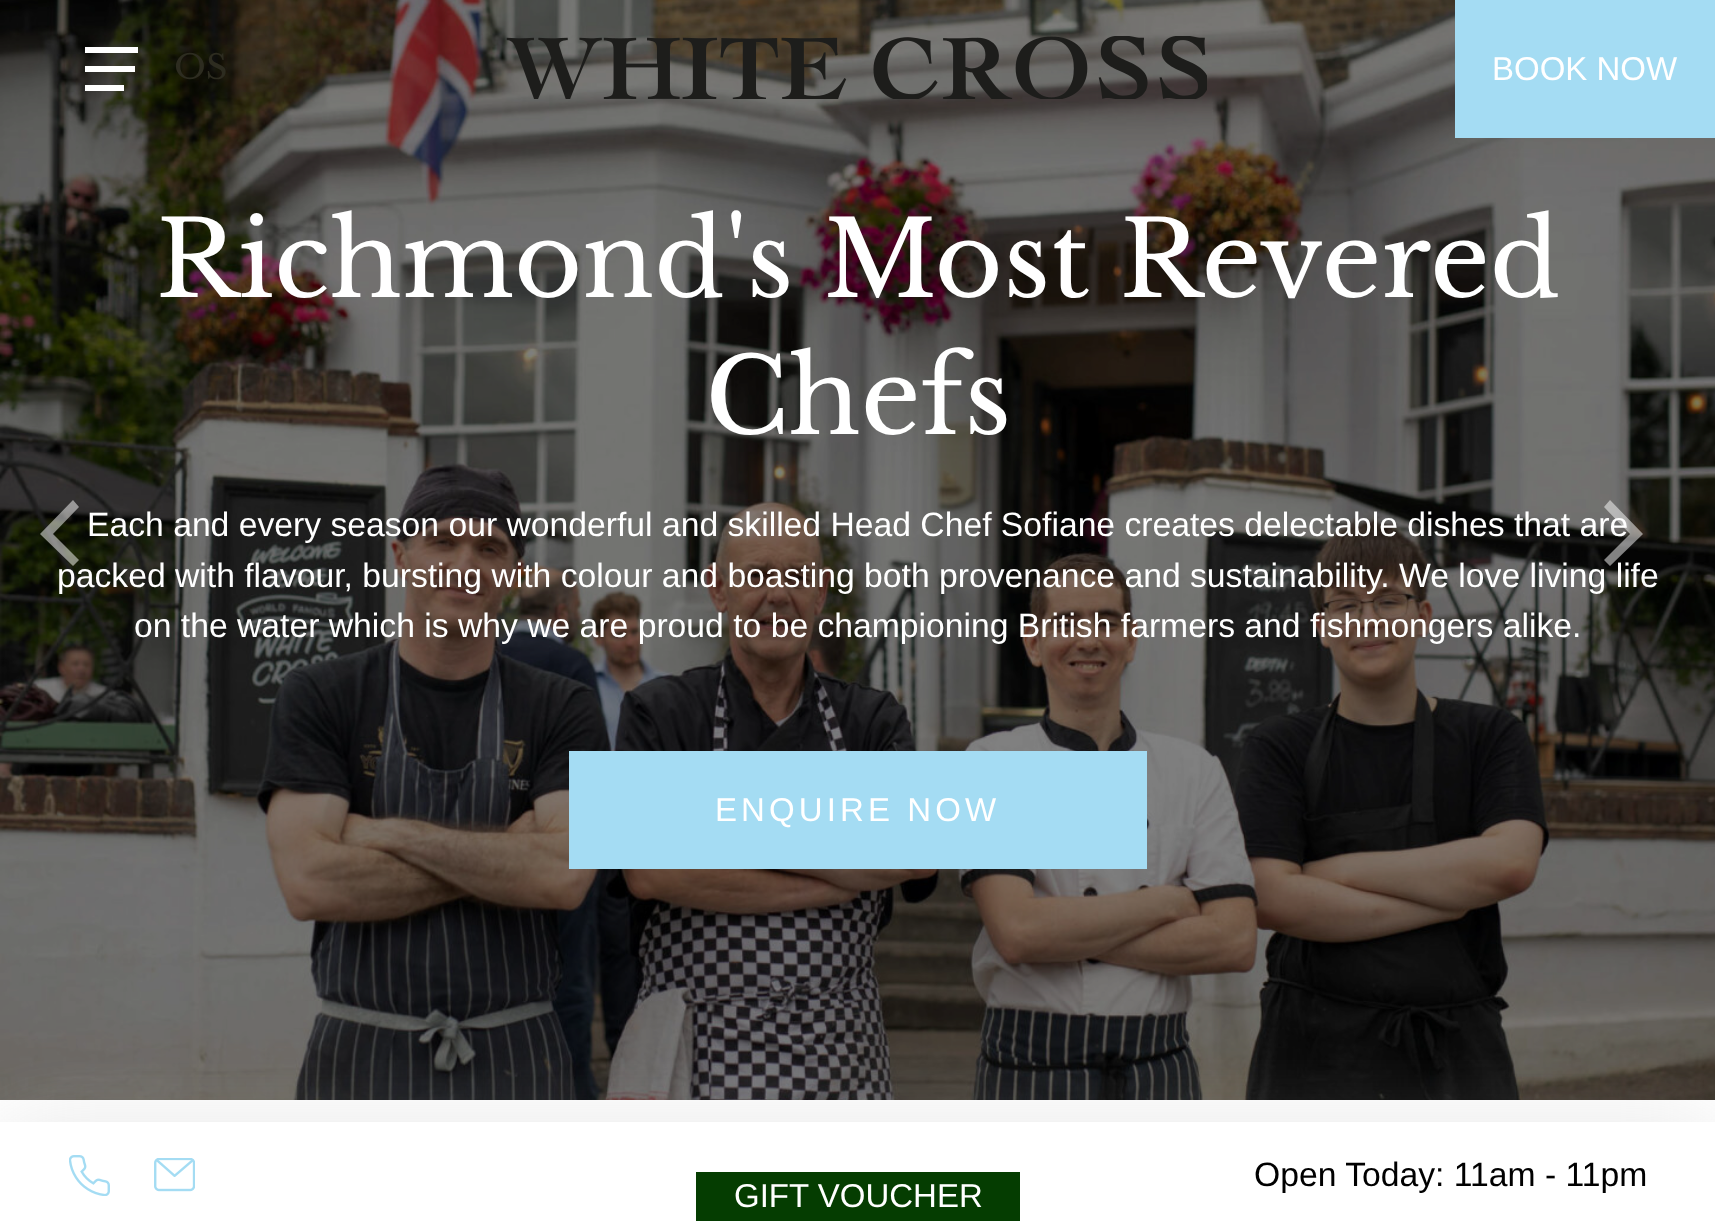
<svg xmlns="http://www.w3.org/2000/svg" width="1715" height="1229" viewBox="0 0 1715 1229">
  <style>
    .t1 { font: 33.7px Libre Baskerville; fill: #2d2c20; }
    .t2 { font: 33px Liberation Sans; fill: #fff; }
    .t3 { font: 33.7px Liberation Sans; fill: #000; }
    .t4 { font: 104.5px Libre Baskerville; fill: #fff; }
    .t5 { font: 33.7px Liberation Sans; fill: #fff; }
    .t6 { font: 33px Liberation Sans; letter-spacing: 4.1px; fill: #fff; }
  </style>
  <defs>
    <clipPath id="clip1"><rect x="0" y="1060" width="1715" height="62"/></clipPath>
  </defs>
  <rect width="100%" height="100%" fill="#fff"/>
  <image x="0" y="0" width="1715" height="1100" href="images/4.png"/>
  <rect x="85" y="47" width="53" height="6" fill="#fff"/>
  <rect x="85" y="66" width="50" height="6" fill="#fff"/>
  <text x="174" y="79" class="t1">OS</text>
  <rect x="85" y="85" width="39" height="6" fill="#fff"/>
  <image x="506" y="36" width="701" height="63" href="images/1.png"/>
  <rect x="1455" y="0" width="260" height="138" fill="#a4dcf3"/>
  <text x="1492" y="80" class="t2">BOOK NOW</text>
  <g clip-path="url(#clip1)">
    <rect x="0" y="1122" width="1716" height="107" fill="#a3a3a340" filter="blur(44px)"/>
  </g>
  <rect x="696" y="1172" width="324" height="49" fill="#053d01"/>
  <text x="734" y="1207" class="t2">GIFT VOUCHER</text>
  <image x="69" y="1155" width="41" height="41" href="images/2.png"/>
  <image x="154" y="1158" width="41" height="34" href="images/3.png"/>
  <text x="1254" y="1186" class="t3">Open Today: 11am - 11pm</text>
  <text x="156" y="297" class="t4">Richmond's Most Revered</text>
  <text x="705" y="434" class="t4">Chefs</text>
  <text x="87" y="536" class="t5">Each and every season our wonderful and skilled Head Chef Sofiane creates delectable dishes that are</text>
  <text x="57" y="587" class="t5">packed with flavour, bursting with colour and boasting both provenance and sustainability. We love living life</text>
  <text x="134" y="637" class="t5">on the water which is why we are proud to be championing British farmers and fishmongers alike.</text>
  <rect x="569" y="751" width="578" height="118" fill="#a4dcf3"/>
  <text x="715" y="821" class="t6">ENQUIRE NOW</text>
  <path d="M40 534L73 566L79 560L53 534L79 507L73 500Z" fill="#ffffff80"/>
  <path d="M1643 534L1610 500L1604 507L1630 534L1604 560L1610 566Z" fill="#ffffff80"/>
</svg>
